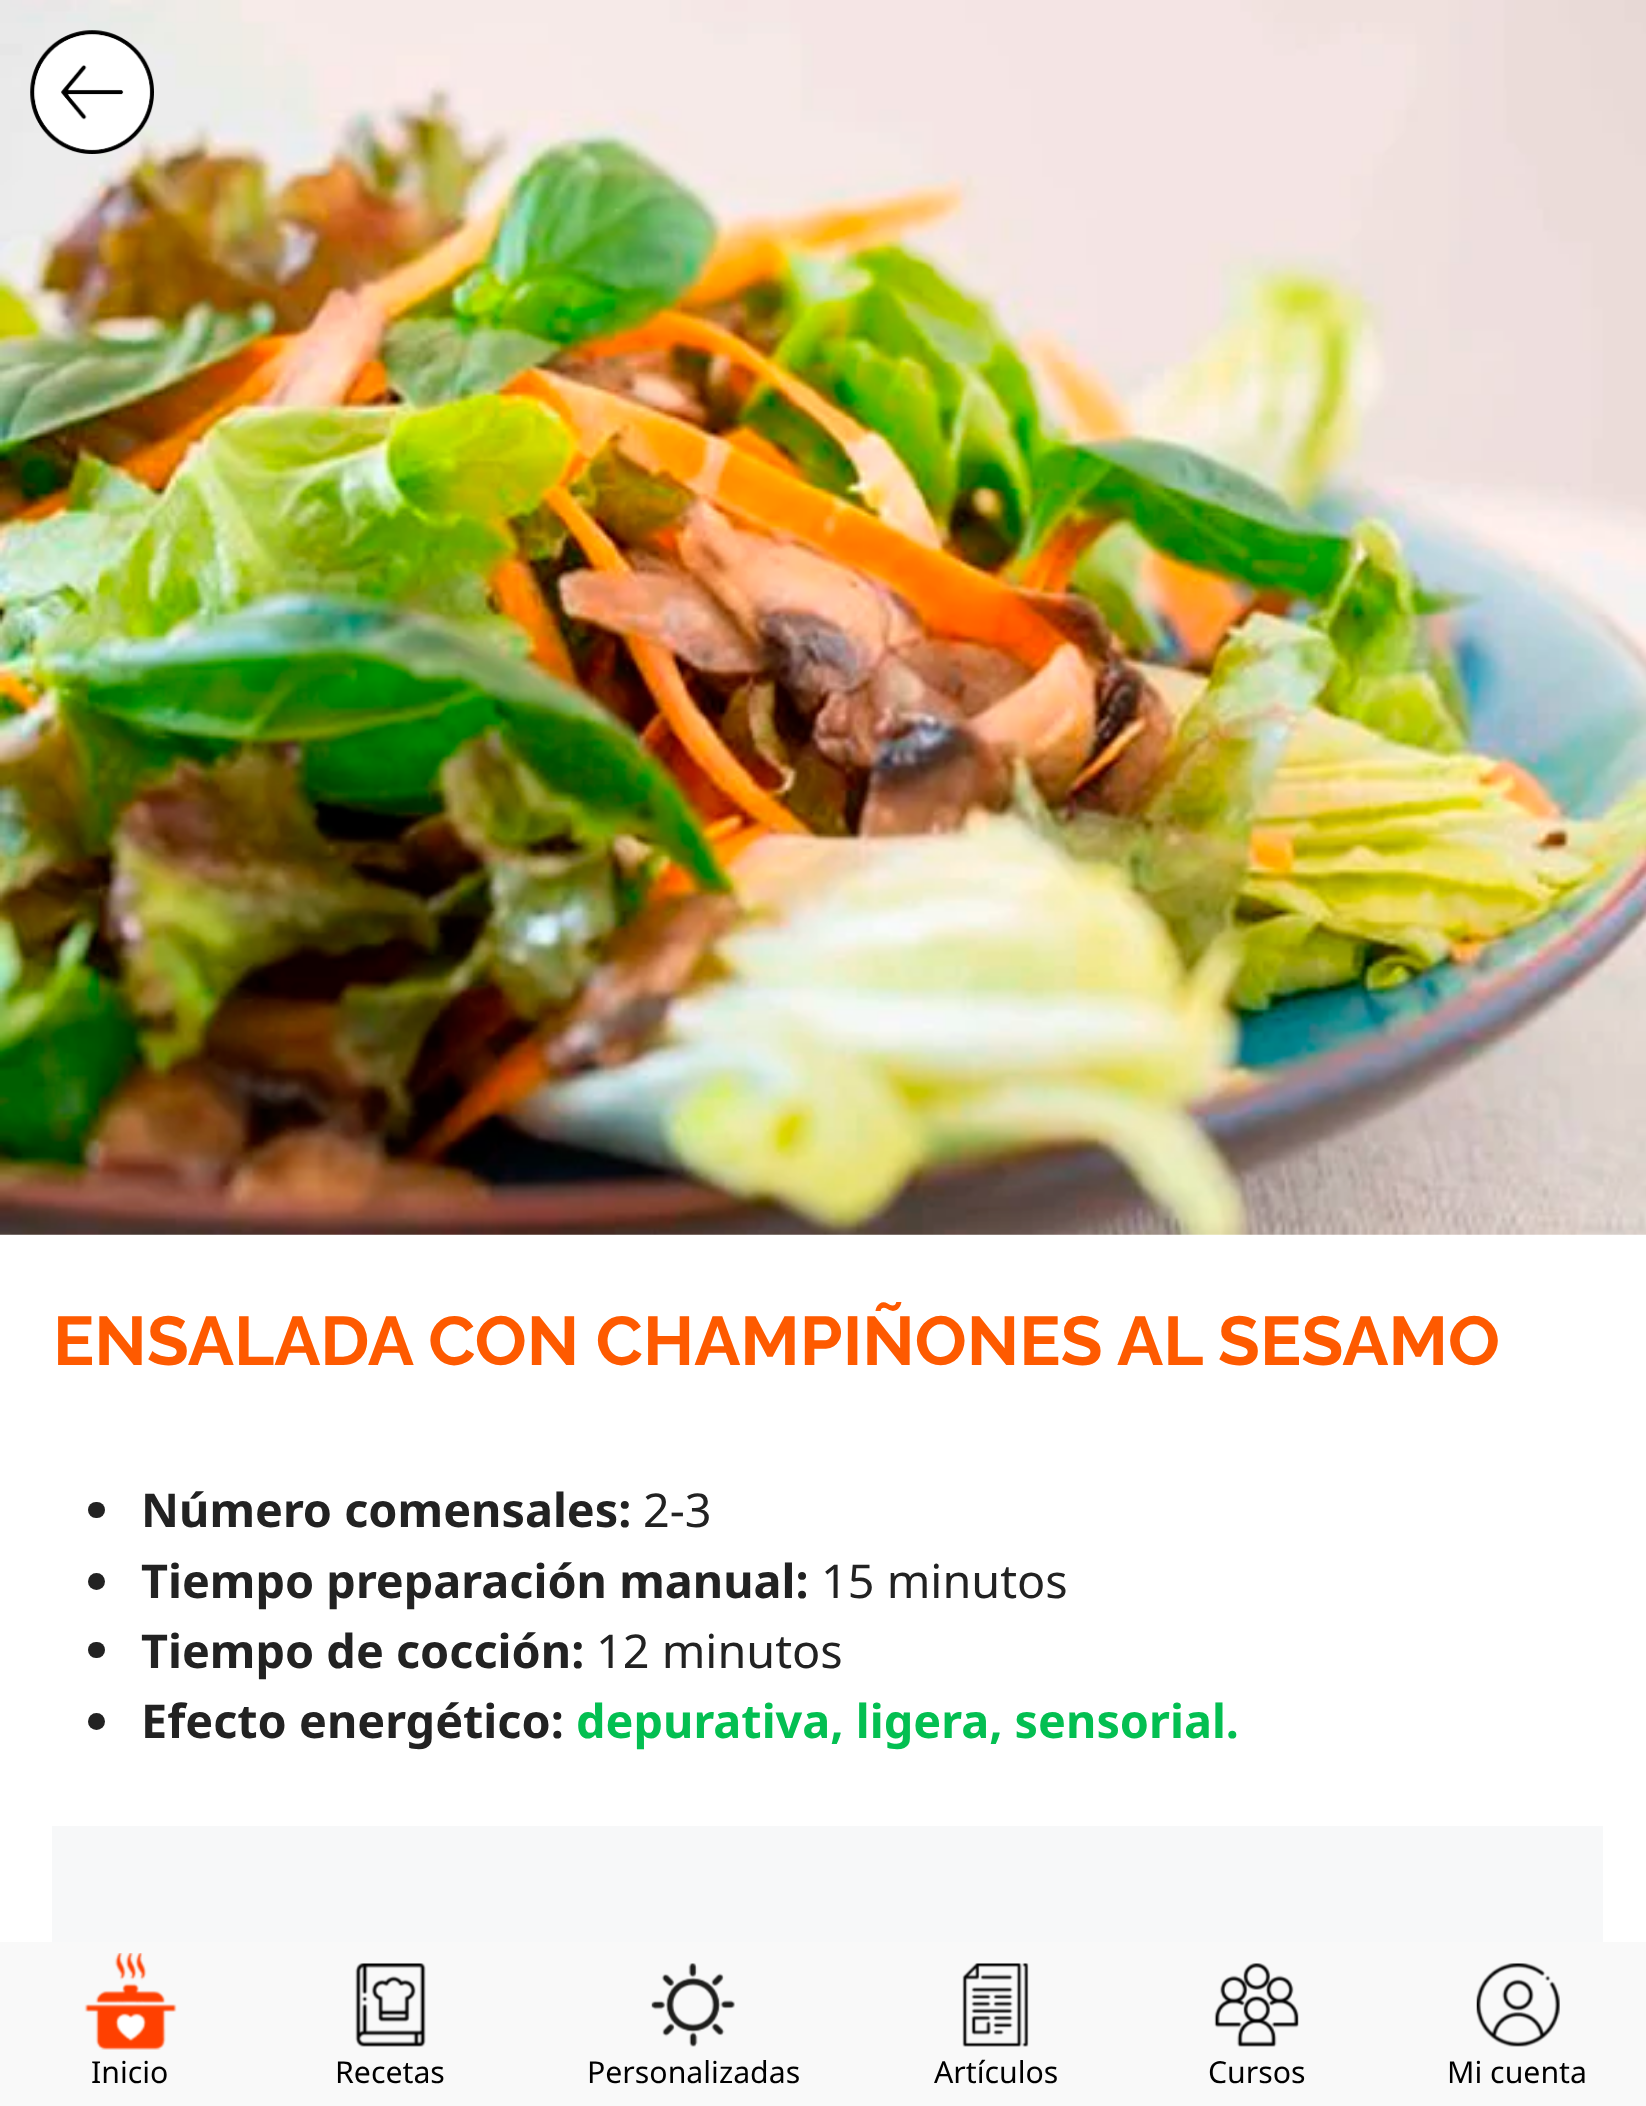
<svg xmlns="http://www.w3.org/2000/svg" width="1646" height="2106" viewBox="0 0 1646 2106">
  <style>
    .t1 { font: bold 68.75px Raleway; fill: #fe5a00; }
    .t2 { font: bold 46.75px Noto Sans; fill: #222; }
    .t3 { font: 46.75px Noto Sans; fill: #222; }
    .t4 { font: bold 46.75px Noto Sans; fill: #03bf51; }
    .t5 { font: 30.25px Noto Sans; fill: #000; }
  </style>
  <rect width="100%" height="100%" fill="#fff"/>
  <image x="0" y="0" width="1646" height="1235" href="images/1.png"/>
  <image x="30" y="30" width="124" height="124" href="images/2.png"/>
  <text x="53" y="1365" class="t1">ENSALADA CON CHAMPIÑONES AL SESAMO</text>
  <rect x="88" y="1502" width="17" height="16" rx="8" fill="#222"/>
  <text x="141" y="1527" class="t2">Número comensales:</text>
  <text x="643" y="1527" class="t3">2-3</text>
  <circle cx="96.5" cy="1581.5" r="8.5" fill="#222"/>
  <text x="141" y="1598" class="t2">Tiempo preparación manual:</text>
  <text x="821" y="1598" class="t3">15 minutos</text>
  <rect x="88" y="1642" width="17" height="16" rx="8" fill="#222"/>
  <text x="141" y="1668" class="t2">Tiempo de cocción:</text>
  <text x="596" y="1668" class="t3">12 minutos</text>
  <circle cx="96.5" cy="1721.5" r="8.5" fill="#222"/>
  <text x="141" y="1738" class="t2">Efecto energético:</text>
  <text x="576" y="1738" class="t4">depurativa, ligera, sensorial.</text>
  <rect x="52" y="1826" width="1551" height="116" fill="#f7f8f9"/>
  <rect x="0" y="1942" width="1646" height="164" fill="#f9f9f9"/>
  <image x="84" y="1953" width="93" height="97" href="images/3.png"/>
  <text x="91" y="2083" class="t5">Inicio</text>
  <image x="355" y="1963" width="71" height="84" href="images/4.png"/>
  <text x="335" y="2083" class="t5">Recetas</text>
  <image x="651" y="1963" width="84" height="84" href="images/5.png"/>
  <text x="587" y="2083" class="t5">Personalizadas</text>
  <image x="962" y="1963" width="67" height="84" href="images/6.png"/>
  <text x="934" y="2083" class="t5">Artículos</text>
  <image x="1214" y="1963" width="85" height="84" href="images/7.png"/>
  <text x="1208" y="2083" class="t5">Cursos</text>
  <image x="1476" y="1963" width="84" height="84" href="images/8.png"/>
  <text x="1447" y="2083" class="t5">Mi cuenta</text>
</svg>
